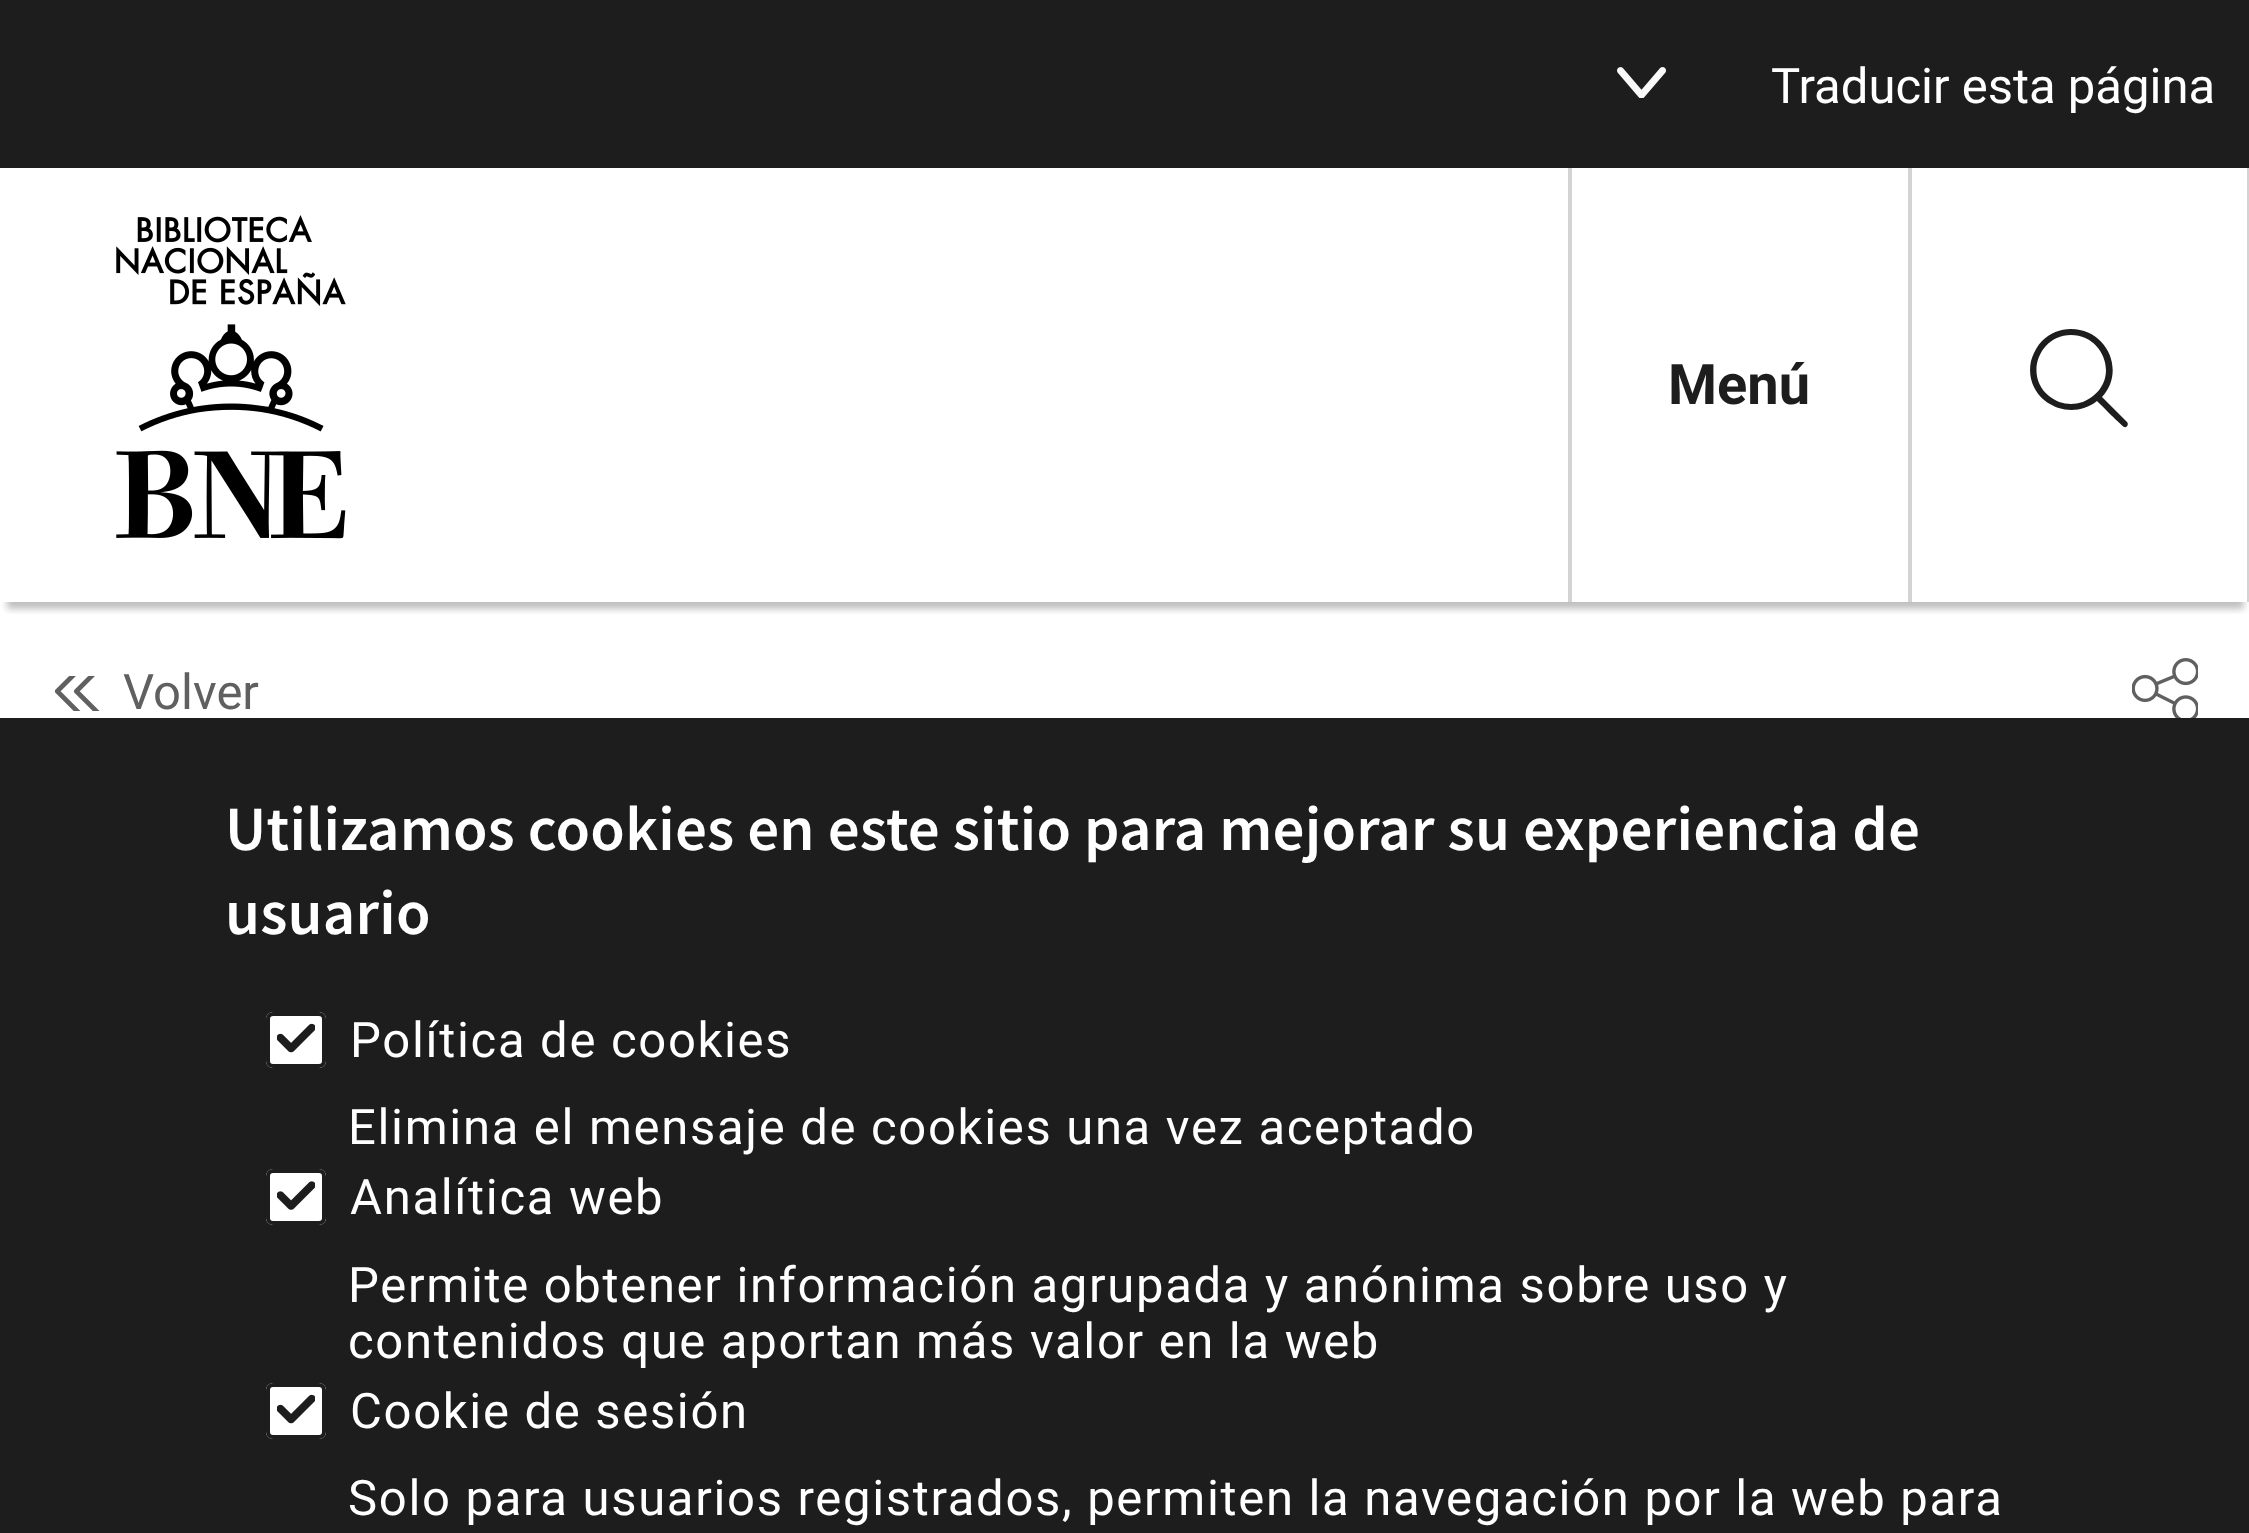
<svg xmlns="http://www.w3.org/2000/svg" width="2249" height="1533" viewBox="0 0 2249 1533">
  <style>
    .t1 { font: 49px Roboto; fill: #fff; }
    .t2 { font: bold 56px Roboto; fill: #1d1d1d; }
    .t3 { font: 49px Roboto; fill: #606060; }
    .t4 { font: 600 63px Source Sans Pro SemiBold; letter-spacing: 0.2px; fill: #fff; }
    .t5 { font: 49px Roboto; letter-spacing: 1.68px; fill: #fff; }
  </style>
  <defs>
    <clipPath id="clip1"><rect x="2" y="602" width="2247" height="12"/></clipPath>
  </defs>
  <rect width="100%" height="100%" fill="#fff"/>
  <rect x="0" y="0" width="2249" height="168" fill="#1d1d1d"/>
  <image x="1617" y="67" width="49" height="31" href="images/1.png"/>
  <text x="1771" y="103" class="t1">Traducir esta página</text>
  <g clip-path="url(#clip1)">
    <rect x="7" y="189" width="2237" height="420" fill="#00000040" filter="blur(3.5px)"/>
  </g>
  <image x="116" y="215" width="230" height="324" href="images/2.png"/>
  <rect x="1568" y="168" width="4" height="434" fill="#d3d3d3"/>
  <text x="1668" y="404" class="t2">Menú</text>
  <rect x="2247" y="168" width="2" height="434" fill="#d3d3d3"/>
  <rect x="1908" y="168" width="4" height="434" fill="#d3d3d3"/>
  <path d="M2127 422L2102 397C2126 371 2107 329 2071 329C2060 329 2050 333 2042 341C2037 346 2033 354 2031 361C2023 400 2068 424 2097 401C2101 405 2122 426 2124 427C2127 428 2129 424 2127 422ZM2071 404C2063 404 2055 401 2049 396C2024 376 2039 335 2071 335C2103 335 2119 376 2093 396C2087 401 2079 404 2071 404Z" fill="#1d1d1d"/>
  <image x="54" y="676" width="46" height="35" href="images/3.png"/>
  <text x="123" y="709" class="t3">Volver</text>
  <image x="2132" y="658" width="66" height="60" href="images/4.png"/>
  <rect x="0" y="718" width="2249" height="815" fill="#1d1d1d"/>
  <text x="225" y="850" class="t4">Utilizamos cookies en este sitio para mejorar su experiencia de</text>
  <text x="225" y="934" class="t4">usuario</text>
  <rect x="266" y="1012" width="60" height="56" rx="7" fill="#fff"/>
  <image x="277" y="1023" width="38" height="30" href="images/5.png"/>
  <rect x="268" y="1014" width="56" height="52" rx="5" fill="none" stroke="#1d1d1d" stroke-width="4"/>
  <text x="350" y="1057" class="t5">Política de cookies</text>
  <text x="348" y="1144" class="t5">Elimina el mensaje de cookies una vez aceptado</text>
  <rect x="266" y="1169" width="60" height="56" rx="7" fill="#fff"/>
  <image x="277" y="1181" width="38" height="29" href="images/6.png"/>
  <rect x="268" y="1171" width="56" height="52" rx="5" fill="none" stroke="#1d1d1d" stroke-width="4"/>
  <text x="350" y="1214" class="t5">Analítica web</text>
  <text x="348" y="1302" class="t5">Permite obtener información agrupada y anónima sobre uso y</text>
  <text x="348" y="1358" class="t5">contenidos que aportan más valor en la web</text>
  <rect x="266" y="1383" width="60" height="56" rx="7" fill="#fff"/>
  <image x="277" y="1394" width="38" height="30" href="images/5.png"/>
  <rect x="268" y="1385" width="56" height="52" rx="5" fill="none" stroke="#1d1d1d" stroke-width="4"/>
  <text x="350" y="1428" class="t5">Cookie de sesión</text>
  <text x="348" y="1515" class="t5">Solo para usuarios registrados, permiten la navegación por la web para</text>
</svg>
